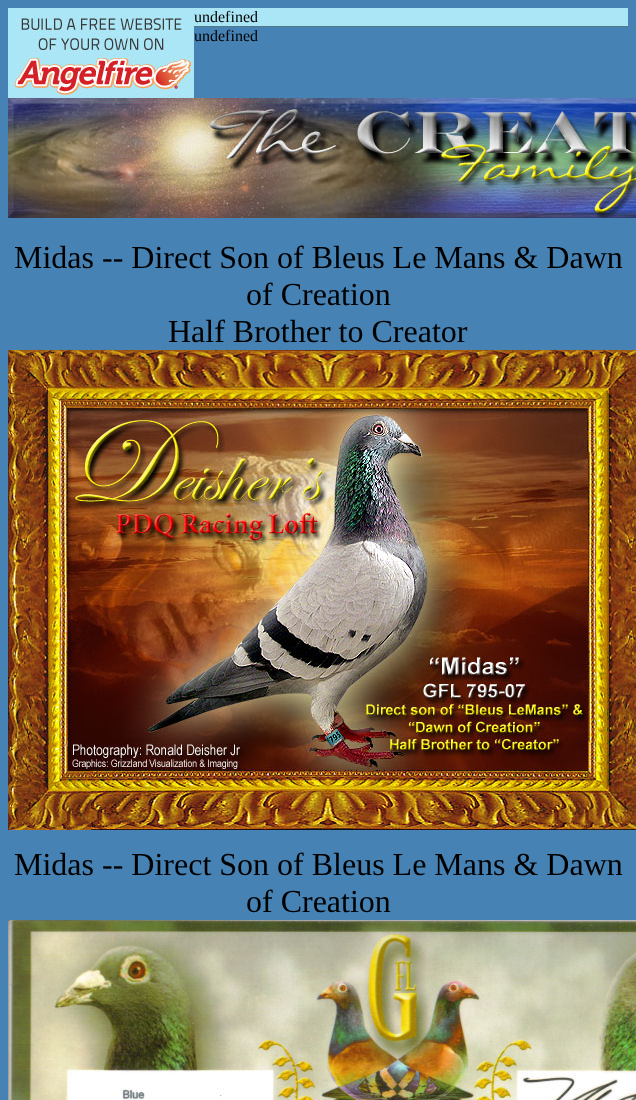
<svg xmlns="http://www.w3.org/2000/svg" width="636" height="1100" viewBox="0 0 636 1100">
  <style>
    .t1 { font: 16px Liberation Serif; fill: #000; }
    .t2 { font: 32px Liberation Serif; fill: #000; }
  </style>
  <rect width="100%" height="100%" fill="#4682b4"/>
  <rect x="8" y="8" width="620" height="18" fill="#abe6f6"/>
  <rect x="194" y="26" width="434" height="1" fill="#507a87"/>
  <image x="8" y="16" width="186" height="82" href="images/1.png"/>
  <text x="194" y="22" class="t1">undefined</text>
  <text x="194" y="41" class="t1">undefined</text>
  <image x="8" y="98" width="628" height="120" href="images/2.png"/>
  <text x="14" y="268" class="t2">Midas -- Direct Son of Bleus Le Mans &amp; Dawn</text>
  <text x="246" y="305" class="t2">of Creation</text>
  <text x="168" y="342" class="t2">Half Brother to Creator</text>
  <image x="8" y="350" width="628" height="480" href="images/3.png"/>
  <text x="14" y="875" class="t2">Midas -- Direct Son of Bleus Le Mans &amp; Dawn</text>
  <text x="246" y="912" class="t2">of Creation</text>
  <image x="8" y="920" width="628" height="180" href="images/4.png"/>
</svg>
